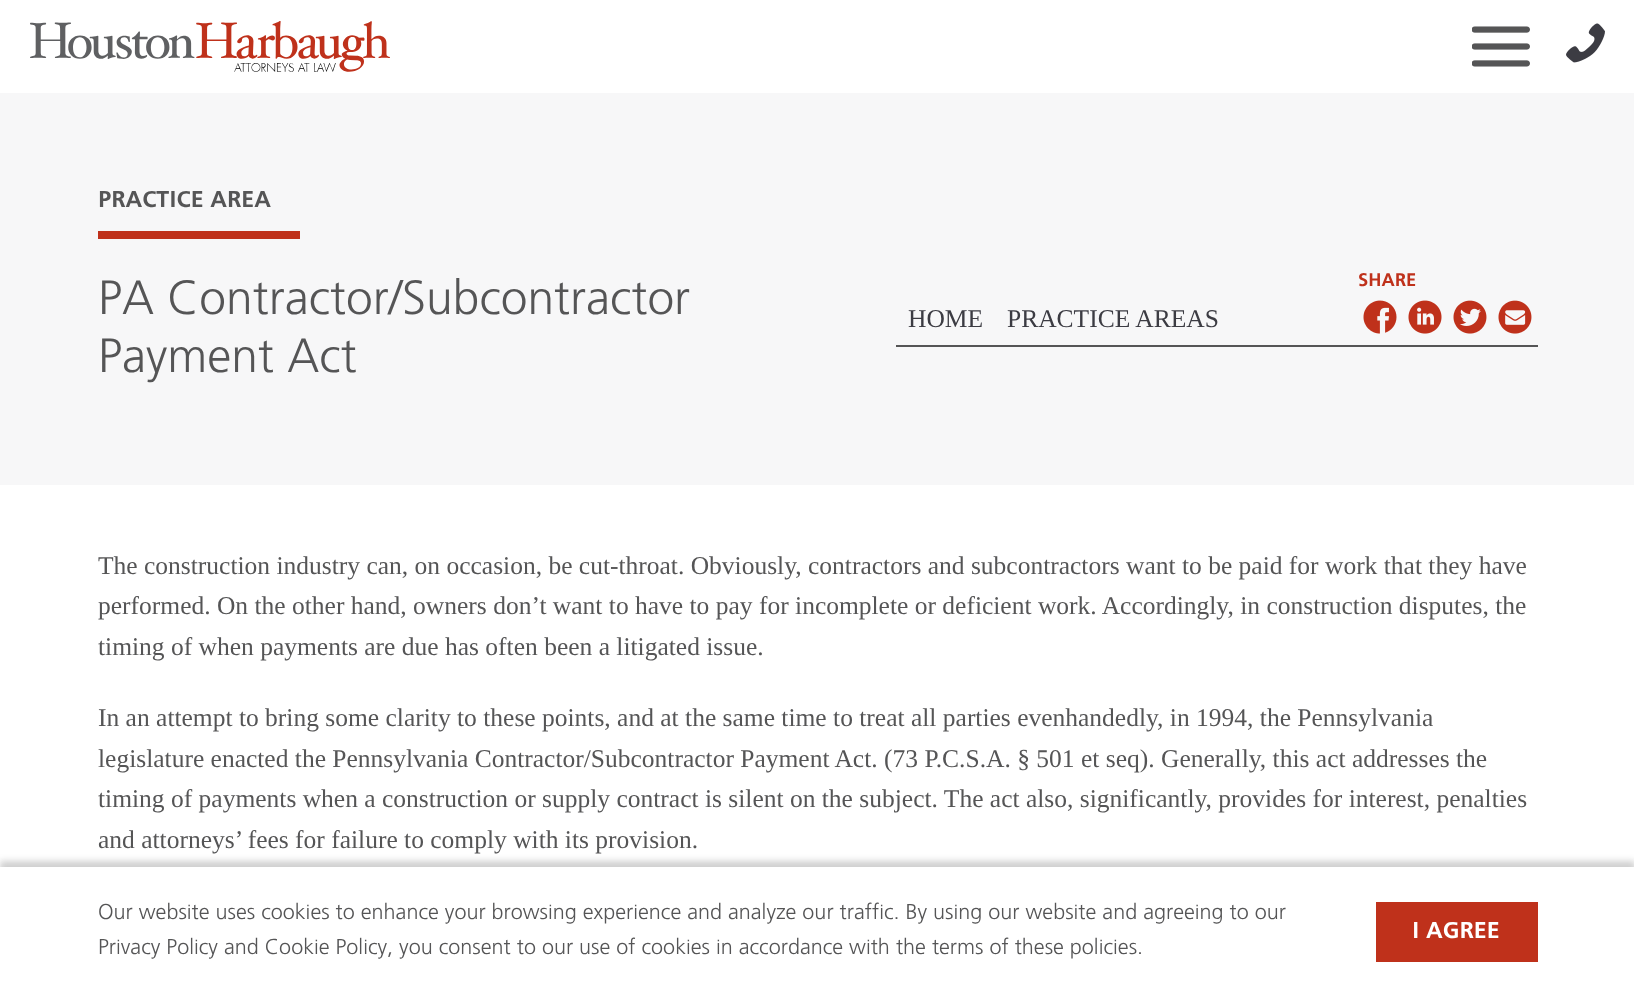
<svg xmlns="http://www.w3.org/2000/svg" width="1634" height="995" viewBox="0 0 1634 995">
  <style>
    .t1 { font: bold 24px Frutiger; fill: #555556; }
    .t2 { font: 300 48px Frutiger; fill: #555556; }
    .t3 { font: bold 19px Frutiger; fill: #bf311b; }
    .t4 { font: 25.5px Liberation Serif; fill: #3c3c43; }
    .t5 { font: 25.5px Liberation Serif; fill: #555556; }
    .t6 { font: 300 21.6px Frutiger; fill: #555556; }
    .t7 { font: bold 24px Frutiger; fill: #fff; }
  </style>
  <rect width="100%" height="100%" fill="#fff"/>
  <image x="30" y="21" width="360" height="51" href="images/1.png"/>
  <image x="1472" y="26" width="58" height="41" href="images/2.png"/>
  <image x="1566" y="23" width="39" height="40" href="images/3.png"/>
  <rect x="0" y="93" width="1634" height="392" fill="#f7f7f8"/>
  <text x="98" y="207" class="t1">PRACTICE AREA</text>
  <rect x="98" y="231" width="202" height="8" fill="#bf311b"/>
  <text x="98" y="314" class="t2">PA Contractor/Subcontractor</text>
  <text x="98" y="372" class="t2">Payment Act</text>
  <rect x="896" y="345" width="642" height="2" fill="#555556"/>
  <text x="1358" y="286" class="t3">SHARE</text>
  <image x="1363" y="300" width="34" height="34" href="images/4.png"/>
  <image x="1408" y="300" width="34" height="34" href="images/5.png"/>
  <image x="1453" y="300" width="34" height="34" href="images/6.png"/>
  <image x="1498" y="300" width="34" height="34" href="images/7.png"/>
  <text x="908" y="327" class="t4">HOME</text>
  <text x="1007" y="327" class="t4">PRACTICE AREAS</text>
  <text x="98" y="574" class="t5">The construction industry can, on occasion, be cut-throat. Obviously, contractors and subcontractors want to be paid for work that they have</text>
  <text x="98" y="614" class="t5">performed. On the other hand, owners don’t want to have to pay for incomplete or deficient work. Accordingly, in construction disputes, the</text>
  <text x="98" y="655" class="t5">timing of when payments are due has often been a litigated issue.</text>
  <text x="98" y="726" class="t5">In an attempt to bring some clarity to these points, and at the same time to treat all parties evenhandedly, in 1994, the Pennsylvania</text>
  <text x="98" y="767" class="t5">legislature enacted the Pennsylvania Contractor/Subcontractor Payment Act. (73 P.C.S.A. § 501 et seq). Generally, this act addresses the</text>
  <text x="98" y="807" class="t5">timing of payments when a construction or supply contract is silent on the subject. The act also, significantly, provides for interest, penalties</text>
  <text x="98" y="848" class="t5">and attorneys’ fees for failure to comply with its provision.</text>
  <rect x="0" y="861" width="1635" height="129" fill="#6363634d" filter="blur(3px)"/>
  <rect x="0" y="867" width="1634" height="128" fill="#fff"/>
  <text x="98" y="919" class="t6">Our website uses cookies to enhance your browsing experience and analyze our traffic. By using our website and agreeing to our</text>
  <text x="98" y="954" class="t6">Privacy Policy and Cookie Policy, you consent to our use of cookies in accordance with the terms of these policies.</text>
  <rect x="1376" y="902" width="162" height="60" fill="#bf311b"/>
  <text x="1412" y="938" class="t7">I AGREE</text>
</svg>
